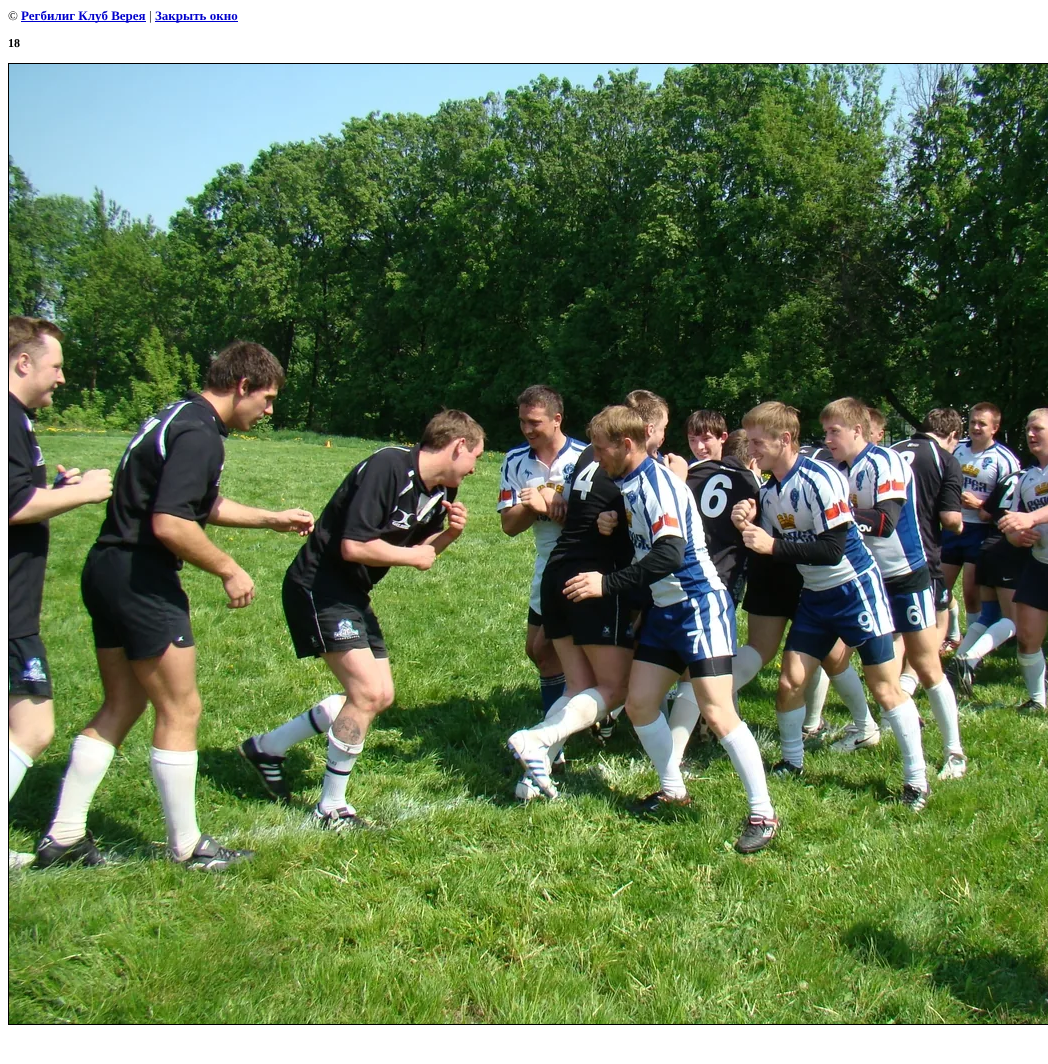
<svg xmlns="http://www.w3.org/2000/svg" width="1048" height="1064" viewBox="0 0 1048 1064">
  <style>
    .t1 { font: 13px Liberation Serif; fill: #000; }
    .t2 { font: bold 13px Liberation Serif; fill: #00c; }
    .t3 { font: bold 12px Liberation Serif; fill: #000; }
  </style>
  <rect width="100%" height="100%" fill="#fff"/>
  <text x="8" y="20" class="t1">©</text>
  <rect x="21" y="21" width="125" height="1" fill="#00c"/>
  <text x="21" y="20" class="t2">Регбилиг Клуб Верея</text>
  <text x="149" y="20" class="t1">|</text>
  <rect x="155" y="21" width="83" height="1" fill="#00c"/>
  <text x="155" y="20" class="t2">Закрыть окно</text>
  <text x="8" y="47" class="t3">18</text>
  <rect x="8.5" y="63.5" width="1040" height="961" fill="none" stroke="#000"/>
  <image x="9" y="64" width="1039" height="960" href="images/1.png"/>
</svg>
